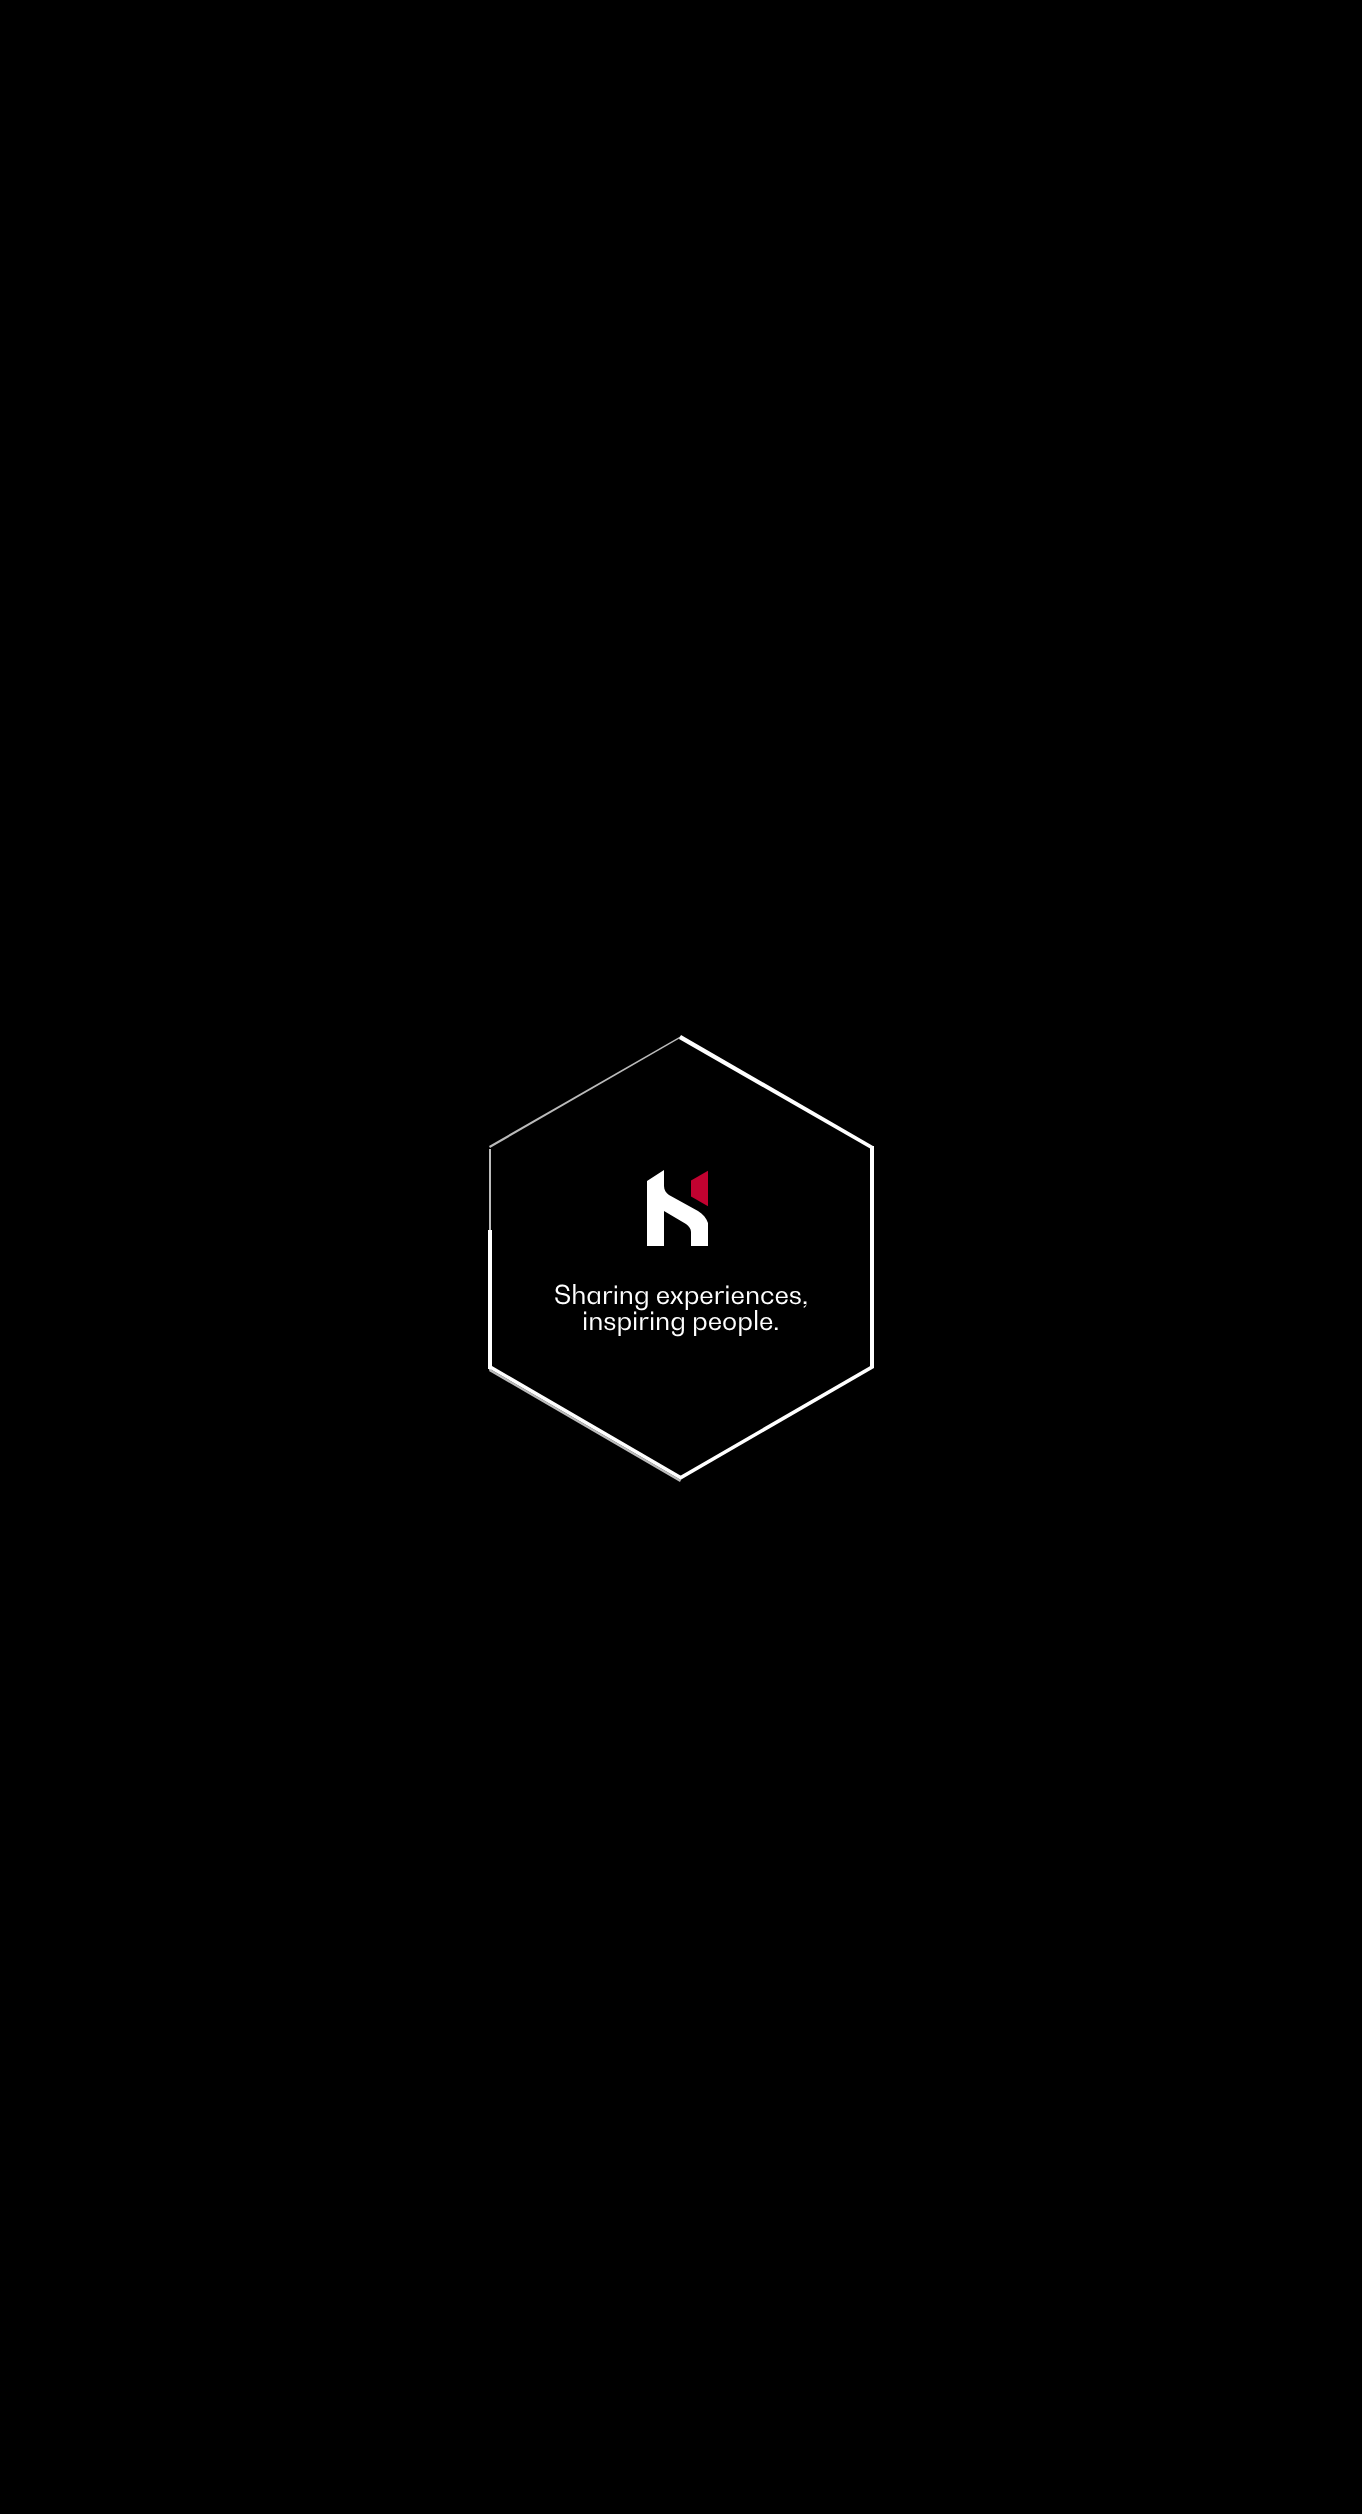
<svg xmlns="http://www.w3.org/2000/svg" width="1362" height="2514" viewBox="0 0 1362 2514">
  <style>
    .t1 { font: 26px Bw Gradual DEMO; fill: #fff; }
  </style>
  <defs>
    <clipPath id="clip1"><rect x="646" y="1170" width="62" height="76"/></clipPath>
  </defs>
  <rect width="100%" height="100%" fill="#000"/>
  <path d="M489 1146L681 1036L682 1037L490 1148Z" fill="#bbb"/>
  <path d="M681 1035L873 1146L871 1149L679 1039Z" fill="#fff"/>
  <path d="M680 1482L489 1371L490 1369L681 1480Z" fill="#bbb"/>
  <rect x="489" y="1149" width="2" height="221" fill="#bbb"/>
  <g clip-path="url(#clip1)">
    <path d="M691 1196.5V1180.5L708.5 1170.5V1206.5Z" fill="#c10230"/>
    <path d="M647 1247V1181L664 1170V1186C664 1190 666 1193 669 1195L698 1211C705 1215 709 1222 709 1229V1247H691V1232C691 1229 689 1226 686 1224L664 1211V1247Z" fill="#fff"/>
  </g>
  <rect x="870" y="1146" width="4" height="222" fill="#fff"/>
  <path d="M874 1368L682 1479L680 1476L872 1365Z" fill="#fff"/>
  <path d="M681 1480L490 1369L492 1366L683 1477Z" fill="#fff"/>
  <rect x="488" y="1230" width="4" height="139" fill="#fff"/>
  <text x="554" y="1304" class="t1">Sharing experiences,</text>
  <text x="582" y="1330" class="t1">inspiring people.</text>
</svg>
